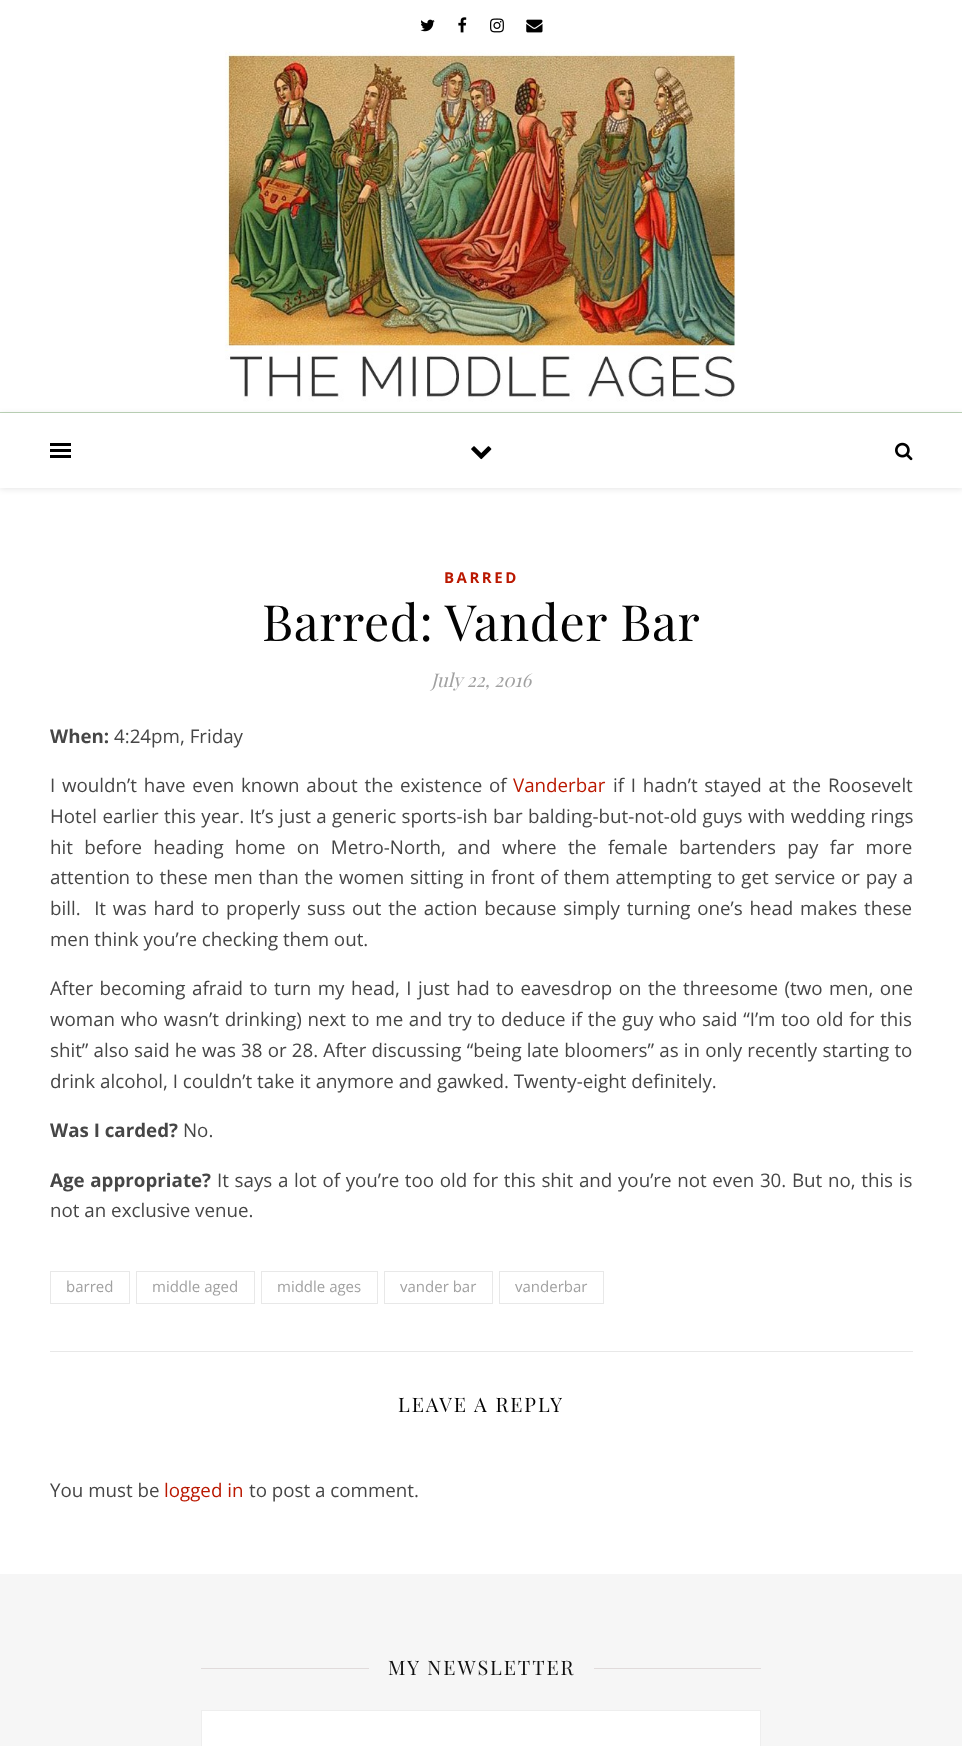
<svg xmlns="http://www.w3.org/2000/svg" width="962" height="1746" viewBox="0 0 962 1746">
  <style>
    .t1 { font: bold 15px Open Sans; letter-spacing: 2.5px; fill: #ba1800; }
    .t2 { font: 50px Playfair Display; letter-spacing: 0.6px; fill: #030303; }
    .t3 { font: italic 18.75px Playfair Display; fill: #a1a1a1; }
    .t4 { font: bold 18.75px Open Sans; fill: #464646; }
    .t5 { font: 18.75px Open Sans; fill: #464646; }
    .t6 { font: 18.75px Open Sans; fill: #ba1800; }
    .t7 { font: 15px Open Sans; fill: #a1a1a1; }
    .t8 { font: 20px Playfair Display; letter-spacing: 1.9px; fill: #030303; }
    .t9 { font: 20px Playfair Display; letter-spacing: 1.9px; fill: #111; }
  </style>
  <rect width="100%" height="100%" fill="#fff"/>
  <image x="420" y="19" width="15" height="13" href="images/1.png"/>
  <image x="458" y="17" width="9" height="16" href="images/2.png"/>
  <image x="490" y="18" width="14" height="15" href="images/3.png"/>
  <image x="526" y="19" width="17" height="14" href="images/4.png"/>
  <rect x="0" y="412" width="962" height="1" fill="#7aa870"/>
  <image x="0" y="50" width="962" height="363" href="images/5.png"/>
  <rect x="0" y="414" width="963" height="75" fill="#0000001a" filter="blur(3px)"/>
  <rect x="0" y="413" width="962" height="75" fill="#fff"/>
  <rect x="50" y="443" width="21" height="3" fill="#000"/>
  <rect x="50" y="449" width="21" height="3" fill="#000"/>
  <rect x="50" y="455" width="21" height="3" fill="#000"/>
  <image x="471" y="446" width="21" height="14" href="images/6.png"/>
  <image x="895" y="442" width="18" height="19" href="images/7.png"/>
  <text x="444" y="583" class="t1">BARRED</text>
  <text x="262" y="641" class="t2">Barred: Vander Bar</text>
  <text x="431" y="687" class="t3">July 22, 2016</text>
  <text x="50" y="743" class="t4">When:</text>
  <text x="114" y="743" class="t5">4:24pm, Friday</text>
  <text x="50" y="792" word-spacing="1.9" class="t5">I wouldn’t have even known about the existence of</text>
  <text x="513" y="792" class="t6">Vanderbar</text>
  <text x="613" y="792" word-spacing="1.9" class="t5">if I hadn’t stayed at the Roosevelt</text>
  <text x="50" y="823" word-spacing="0.5" class="t5">Hotel earlier this year. It’s just a generic sports-ish bar balding-but-not-old guys with wedding rings</text>
  <text x="50" y="854" word-spacing="6.4" class="t5">hit before heading home on Metro-North, and where the female bartenders pay far more</text>
  <text x="50" y="884" word-spacing="0.9" class="t5">attention to these men than the women sitting in front of them attempting to get service or pay a</text>
  <text x="50" y="915" word-spacing="1.9" class="t5" xml:space="preserve">bill.  It was hard to properly suss out the action because simply turning one’s head makes these</text>
  <text x="50" y="946" class="t5">men think you’re checking them out.</text>
  <text x="50" y="995" word-spacing="1.6" class="t5">After becoming afraid to turn my head, I just had to eavesdrop on the threesome (two men, one</text>
  <text x="50" y="1026" word-spacing="0.8" class="t5">woman who wasn’t drinking) next to me and try to deduce if the guy who said “I’m too old for this</text>
  <text x="50" y="1057" word-spacing="0.3" class="t5">shit” also said he was 38 or 28. After discussing “being late bloomers” as in only recently starting to</text>
  <text x="50" y="1088" class="t5">drink alcohol, I couldn’t take it anymore and gawked. Twenty-eight definitely.</text>
  <text x="50" y="1137" class="t4">Was I carded?</text>
  <text x="183" y="1137" class="t5">No.</text>
  <text x="50" y="1187" word-spacing="0.8" class="t4">Age appropriate?</text>
  <text x="217" y="1187" word-spacing="0.8" class="t5">It says a lot of you’re too old for this shit and you’re not even 30. But no, this is</text>
  <text x="50" y="1217" class="t5">not an exclusive venue.</text>
  <rect x="50" y="1351" width="863" height="1" fill="#e8e8e8"/>
  <rect x="50.5" y="1271.5" width="79" height="32" fill="none" stroke="#e8e8e8"/>
  <text x="66" y="1292" class="t7">barred</text>
  <rect x="136.5" y="1271.5" width="118" height="32" fill="none" stroke="#e8e8e8"/>
  <text x="152" y="1292" class="t7">middle aged</text>
  <rect x="261.5" y="1271.5" width="116" height="32" fill="none" stroke="#e8e8e8"/>
  <text x="277" y="1292" class="t7">middle ages</text>
  <rect x="384.5" y="1271.5" width="108" height="32" fill="none" stroke="#e8e8e8"/>
  <text x="400" y="1292" class="t7">vander bar</text>
  <rect x="499.5" y="1271.5" width="104" height="32" fill="none" stroke="#e8e8e8"/>
  <text x="515" y="1292" class="t7">vanderbar</text>
  <text x="398" y="1412" class="t8">LEAVE A REPLY</text>
  <text x="50" y="1497" class="t5">You must be</text>
  <text x="164" y="1497" class="t6">logged in</text>
  <text x="249" y="1497" class="t5">to post a comment.</text>
  <rect x="0" y="1574" width="962" height="172" fill="#f6f6f6"/>
  <rect x="201" y="1668" width="168" height="1" fill="#e0dbdb"/>
  <text x="388" y="1675" class="t9">MY NEWSLETTER</text>
  <rect x="594" y="1668" width="167" height="1" fill="#e0dbdb"/>
  <rect x="201.5" y="1710.5" width="559" height="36" fill="#fff" stroke="#eee"/>
</svg>
